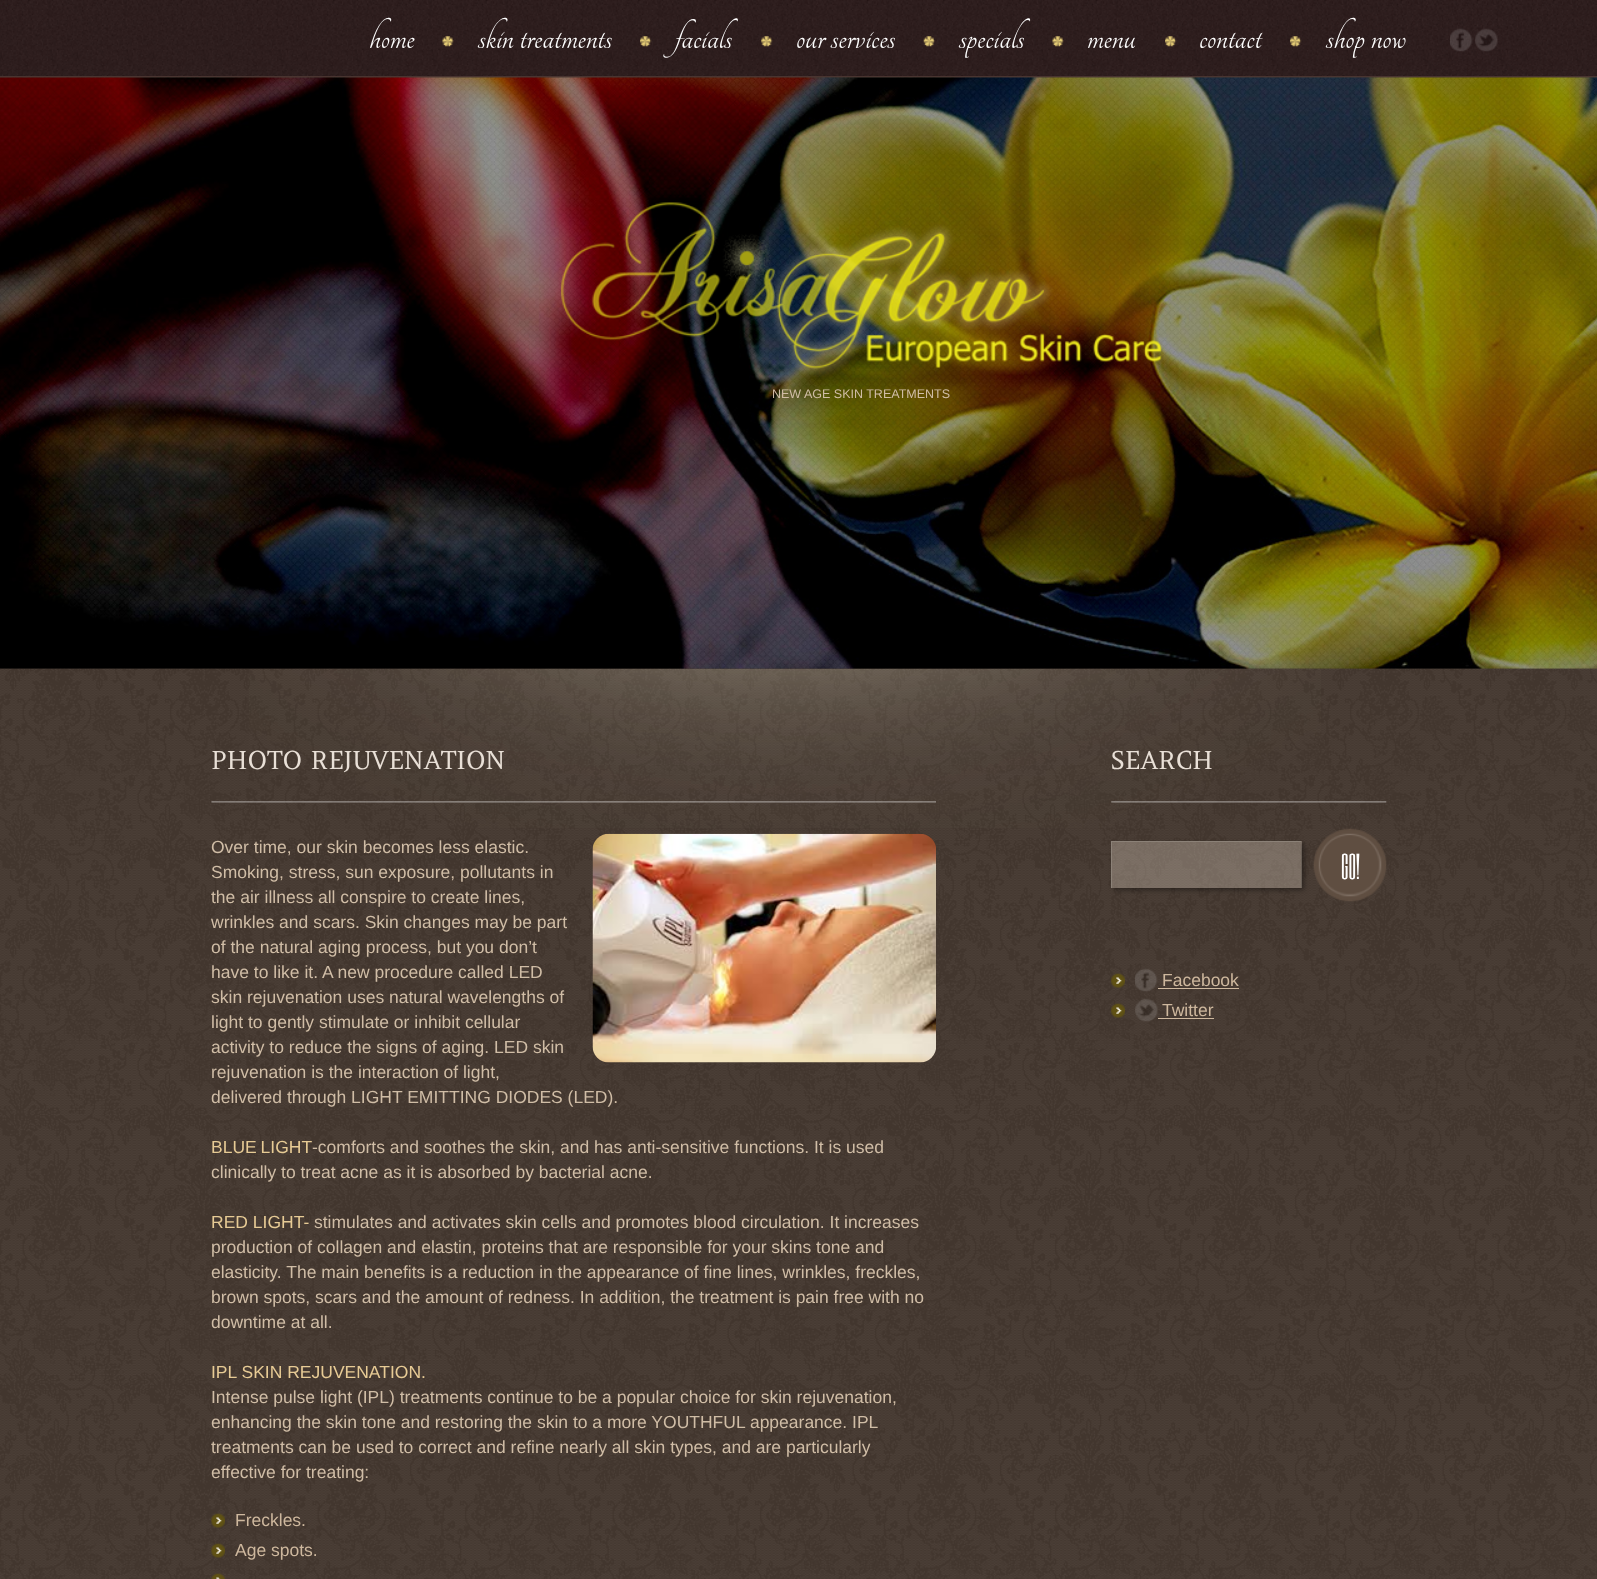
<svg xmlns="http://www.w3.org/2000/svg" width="1597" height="1579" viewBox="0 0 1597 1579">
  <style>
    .t1 { font: 40px Tangerine; fill: #fff; }
    .t2 { font: 12.5px Liberation Sans; fill: #d0bda6; }
    .t3 { font: 25px Amethysta; fill: #e9e0d7; }
    .t4 { font: 17.5px Liberation Sans; fill: #d0bda6; }
    .t5 { font: 17.5px Liberation Sans; fill: #e7cb95; }
    .t6 { font: 17.5px Liberation Sans; fill: #ceb89e; }
    .t7 { font: 30px Six Caps; fill: #fff; }
  </style>
  <defs>
    <clipPath id="clip1"><path d="M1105 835H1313V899H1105ZM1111 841H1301V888H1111Z" clip-rule="evenodd"/></clipPath>
  </defs>
  <rect width="100%" height="100%" fill="#fff"/>
  <image x="0" y="77" width="1597" height="1502" href="images/1.png"/>
  <image x="0" y="0" width="1597" height="76" href="images/2.png"/>
  <text x="369" y="48" class="t1">home</text>
  <image x="442" y="36" width="12" height="11" href="images/3.png"/>
  <text x="478" y="48" class="t1">skin treatments</text>
  <image x="640" y="36" width="12" height="11" href="images/4.png"/>
  <text x="675" y="48" class="t1">facials</text>
  <image x="761" y="36" width="12" height="11" href="images/5.png"/>
  <text x="796" y="48" class="t1">our services</text>
  <image x="923" y="36" width="12" height="11" href="images/6.png"/>
  <text x="959" y="48" class="t1">specials</text>
  <image x="1052" y="36" width="12" height="11" href="images/7.png"/>
  <text x="1087" y="48" class="t1">menu</text>
  <image x="1165" y="36" width="12" height="11" href="images/8.png"/>
  <text x="1199" y="48" class="t1">contact</text>
  <image x="1290" y="36" width="12" height="11" href="images/9.png"/>
  <text x="1326" y="48" class="t1">shop now</text>
  <image x="1450" y="28" width="23" height="24" href="images/10.png"/>
  <image x="1475" y="28" width="23" height="24" href="images/11.png"/>
  <image x="249" y="668" width="1072" height="160" href="images/14.png"/>
  <image x="0" y="77" width="1597" height="592" href="images/13.png"/>
  <image x="561" y="202" width="601" height="175" href="images/12.png"/>
  <text x="772" y="398" class="t2">NEW AGE SKIN TREATMENTS</text>
  <rect x="0" y="76" width="1597" height="1" fill="#493430"/>
  <image x="211" y="801" width="725" height="2" href="images/15.png"/>
  <text x="211" y="769" class="t3">PHOTO REJUVENATION</text>
  <text x="211" y="853" class="t4">Over time, our skin becomes less elastic.</text>
  <image x="592" y="833" width="344" height="230" href="images/16.png"/>
  <text x="211" y="878" class="t4">Smoking, stress, sun exposure, pollutants in</text>
  <text x="211" y="903" class="t4">the air illness all conspire to create lines,</text>
  <text x="211" y="928" class="t4">wrinkles and scars. Skin changes may be part</text>
  <text x="211" y="953" class="t4">of the natural aging process, but you don’t</text>
  <text x="211" y="978" class="t4">have to like it. A new procedure called LED</text>
  <text x="211" y="1003" class="t4">skin rejuvenation uses natural wavelengths of</text>
  <text x="211" y="1028" class="t4">light to gently stimulate or inhibit cellular</text>
  <text x="211" y="1053" class="t4">activity to reduce the signs of aging. LED skin</text>
  <text x="211" y="1078" class="t4">rejuvenation is the interaction of light,</text>
  <text x="211" y="1103" class="t4">delivered through LIGHT EMITTING DIODES (LED).</text>
  <text x="211" y="1153" word-spacing="-1" class="t5">BLUE LIGHT</text>
  <text x="312" y="1153" class="t4">-comforts and soothes the skin, and has anti-sensitive functions. It is used</text>
  <text x="211" y="1178" class="t4">clinically to treat acne as it is absorbed by bacterial acne.</text>
  <text x="211" y="1228" class="t5">RED LIGHT-</text>
  <text x="314" y="1228" class="t4">stimulates and activates skin cells and promotes blood circulation. It increases</text>
  <text x="211" y="1253" class="t4">production of collagen and elastin, proteins that are responsible for your skins tone and</text>
  <text x="211" y="1278" class="t4">elasticity. The main benefits is a reduction in the appearance of fine lines, wrinkles, freckles,</text>
  <text x="211" y="1303" class="t4">brown spots, scars and the amount of redness. In addition, the treatment is pain free with no</text>
  <text x="211" y="1328" class="t4">downtime at all.</text>
  <text x="211" y="1378" class="t5">IPL SKIN REJUVENATION.</text>
  <text x="211" y="1403" class="t4">Intense pulse light (IPL) treatments continue to be a popular choice for skin rejuvenation,</text>
  <text x="211" y="1428" class="t4">enhancing the skin tone and restoring the skin to a more YOUTHFUL appearance. IPL</text>
  <text x="211" y="1453" class="t4">treatments can be used to correct and refine nearly all skin types, and are particularly</text>
  <text x="211" y="1478" class="t4">effective for treating:</text>
  <image x="211" y="1513" width="14" height="15" href="images/17.png"/>
  <text x="235" y="1526" class="t6">Freckles.</text>
  <image x="211" y="1543" width="14" height="15" href="images/18.png"/>
  <text x="235" y="1556" class="t6">Age spots.</text>
  <image x="211" y="1573" width="14" height="6" href="images/19.png"/>
  <image x="1111" y="801" width="276" height="2" href="images/20.png"/>
  <text x="1111" y="769" class="t3">SEARCH</text>
  <g clip-path="url(#clip1)">
    <rect x="1114" y="844" width="190" height="46" fill="#00000066" filter="blur(2.5px)"/>
  </g>
  <rect x="1112" y="841" width="190" height="47" fill="#f2e5d44d"/>
  <rect x="1111" y="841" width="190" height="1" fill="#8b8177"/>
  <rect x="1111" y="841" width="1" height="47" fill="#8b8177"/>
  <image x="1313" y="828" width="74" height="74" href="images/21.png"/>
  <text x="1341" y="879" class="t7">GO!</text>
  <image x="1111" y="973" width="14" height="15" href="images/22.png"/>
  <image x="1135" y="968" width="23" height="24" href="images/23.png"/>
  <text x="1162" y="986" class="t6">Facebook</text>
  <rect x="1158" y="988" width="81" height="1" fill="#ceb89e"/>
  <image x="1111" y="1003" width="14" height="15" href="images/24.png"/>
  <image x="1135" y="998" width="23" height="24" href="images/25.png"/>
  <text x="1162" y="1016" class="t6">Twitter</text>
  <rect x="1158" y="1018" width="56" height="1" fill="#ceb89e"/>
</svg>
